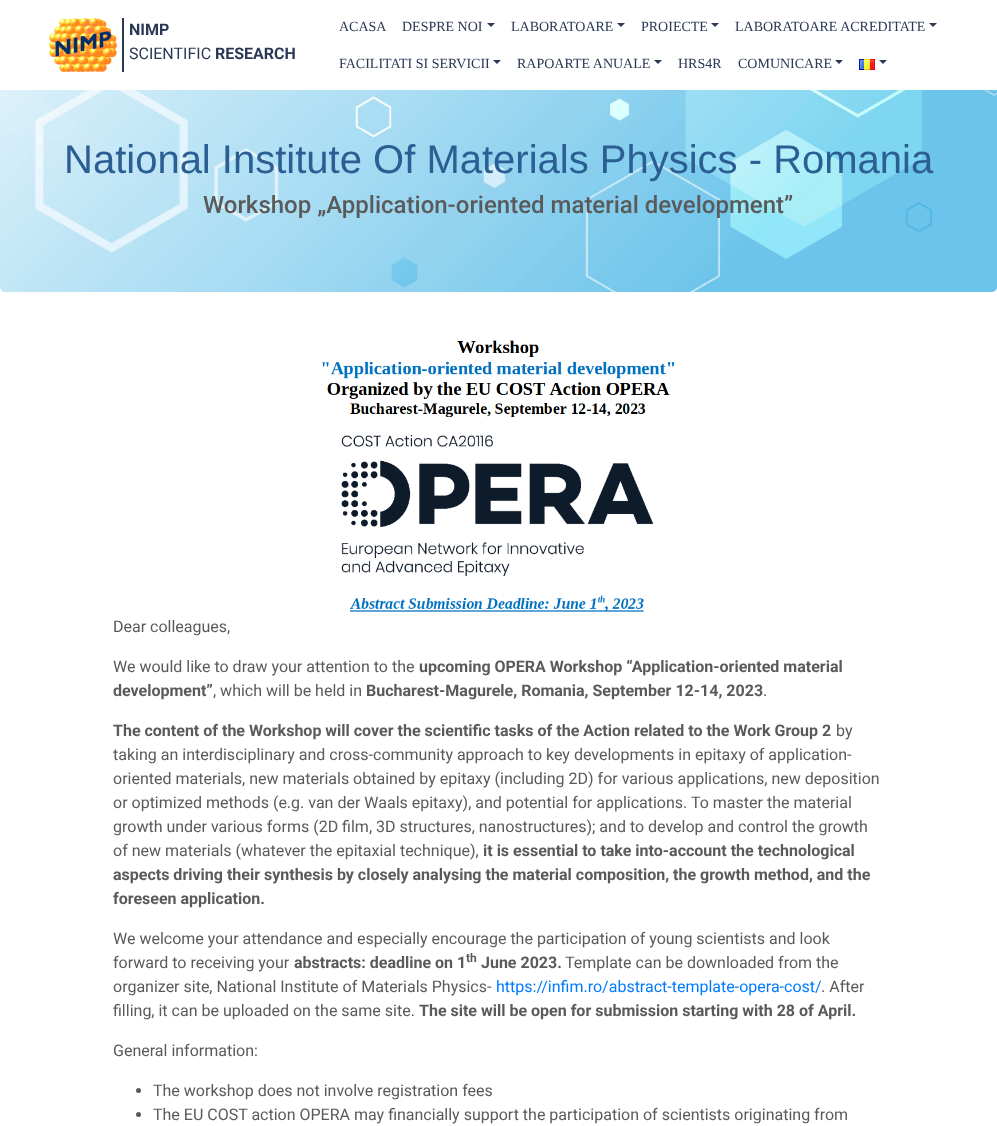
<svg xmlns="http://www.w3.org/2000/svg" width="997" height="1126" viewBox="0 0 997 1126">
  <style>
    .t1 { font: bold 16px Roboto; fill: #2a3855; }
    .t2 { font: 16px Roboto; fill: #2a3855; }
    .t3 { font: 14px Liberation Serif; fill: #2a3855; }
    .t4 { font: 40px Liberation Sans; fill: #2b5e92; }
    .t5 { font: 500 24px Roboto; fill: #5a5a5a; }
    .t6 { font: 16px Roboto; fill: #5a5a5a; }
    .t7 { font: bold 16px Roboto; fill: #5a5a5a; }
    .t8 { font: bold 12px Roboto; fill: #5a5a5a; }
    .t9 { font: 16px Roboto; fill: #007bff; }
  </style>
  <rect width="100%" height="100%" fill="#fff"/>
  <rect x="122" y="18" width="2" height="54" fill="#2a3855"/>
  <image x="49" y="18" width="69" height="54" href="images/1.png"/>
  <text x="129" y="35" class="t1">NIMP</text>
  <text x="129" y="59" class="t2">SCIENTIFIC</text>
  <text x="215" y="59" class="t1">RESEARCH</text>
  <text x="339" y="31" class="t3">ACASA</text>
  <text x="402" y="31" class="t3">DESPRE NOI</text>
  <path d="M487 23H495L491 27Z" fill="#2a3855"/>
  <text x="511" y="31" class="t3">LABORATOARE</text>
  <path d="M617 23H625L621 27Z" fill="#2a3855"/>
  <text x="641" y="31" class="t3">PROIECTE</text>
  <path d="M711 23H719L715 27Z" fill="#2a3855"/>
  <text x="735" y="31" class="t3">LABORATOARE ACREDITATE</text>
  <path d="M929 23H937L933 27Z" fill="#2a3855"/>
  <text x="339" y="68" class="t3">FACILITATI SI SERVICII</text>
  <path d="M493 60H501L497 64Z" fill="#2a3855"/>
  <text x="517" y="68" class="t3">RAPOARTE ANUALE</text>
  <path d="M654 60H662L658 64Z" fill="#2a3855"/>
  <text x="678" y="68" class="t3">HRS4R</text>
  <text x="738" y="68" class="t3">COMUNICARE</text>
  <path d="M835 60H843L839 64Z" fill="#2a3855"/>
  <image x="859" y="59" width="16" height="11" href="images/2.png"/>
  <path d="M879 60H887L883 64Z" fill="#2a3855"/>
  <image x="0" y="90" width="997" height="202" href="images/3.png"/>
  <text x="64" y="173" class="t4">National Institute Of Materials Physics - Romania</text>
  <text x="203" y="213" class="t5">Workshop „Application-oriented material development”</text>
  <image x="322" y="340" width="353" height="272" href="images/4.png"/>
  <text x="113" y="632" class="t6">Dear colleagues,</text>
  <text x="113" y="672" class="t6">We would like to draw your attention to the</text>
  <text x="419" y="672" class="t7">upcoming OPERA Workshop “Application-oriented material</text>
  <text x="113" y="696" class="t7">development”</text>
  <text x="213" y="696" class="t6">, which will be held in</text>
  <text x="366" y="696" class="t7">Bucharest-Magurele, Romania, September 12-14, 2023</text>
  <text x="763" y="696" class="t6">.</text>
  <text x="113" y="736" class="t7">The content of the Workshop will cover the scientific tasks of the Action related to the Work Group 2</text>
  <text x="836" y="736" class="t6">by</text>
  <text x="113" y="760" class="t6">taking an interdisciplinary and cross-community approach to key developments in epitaxy of application-</text>
  <text x="113" y="784" class="t6">oriented materials, new materials obtained by epitaxy (including 2D) for various applications, new deposition</text>
  <text x="113" y="808" class="t6">or optimized methods (e.g. van der Waals epitaxy), and potential for applications. To master the material</text>
  <text x="113" y="832" class="t6">growth under various forms (2D film, 3D structures, nanostructures); and to develop and control the growth</text>
  <text x="113" y="856" class="t6">of new materials (whatever the epitaxial technique),</text>
  <text x="483" y="856" class="t7">it is essential to take into-account the technological</text>
  <text x="113" y="880" class="t7">aspects driving their synthesis by closely analysing the material composition, the growth method, and the</text>
  <text x="113" y="904" class="t7">foreseen application.</text>
  <text x="113" y="944" class="t6">We welcome your attendance and especially encourage the participation of young scientists and look</text>
  <text x="113" y="968" class="t6">forward to receiving your</text>
  <text x="294" y="968" class="t7">abstracts: deadline on 1</text>
  <text x="466" y="962" class="t8">th</text>
  <text x="481" y="968" class="t7">June 2023.</text>
  <text x="565" y="968" class="t6">Template can be downloaded from the</text>
  <text x="113" y="992" class="t6">organizer site, National Institute of Materials Physics-</text>
  <text x="496" y="992" class="t9">https://infim.ro/abstract-template-opera-cost/</text>
  <text x="821" y="992" class="t6">. After</text>
  <text x="113" y="1016" class="t6">filling, it can be uploaded on the same site.</text>
  <text x="419" y="1016" class="t7">The site will be open for submission starting with 28 of April.</text>
  <text x="113" y="1056" class="t6">General information:</text>
  <circle cx="138.5" cy="1090.5" r="2.5" fill="#5a5a5a"/>
  <text x="153" y="1096" class="t6">The workshop does not involve registration fees</text>
  <circle cx="138.5" cy="1114.5" r="2.5" fill="#5a5a5a"/>
  <text x="153" y="1120" class="t6">The EU COST action OPERA may financially support the participation of scientists originating from</text>
</svg>
